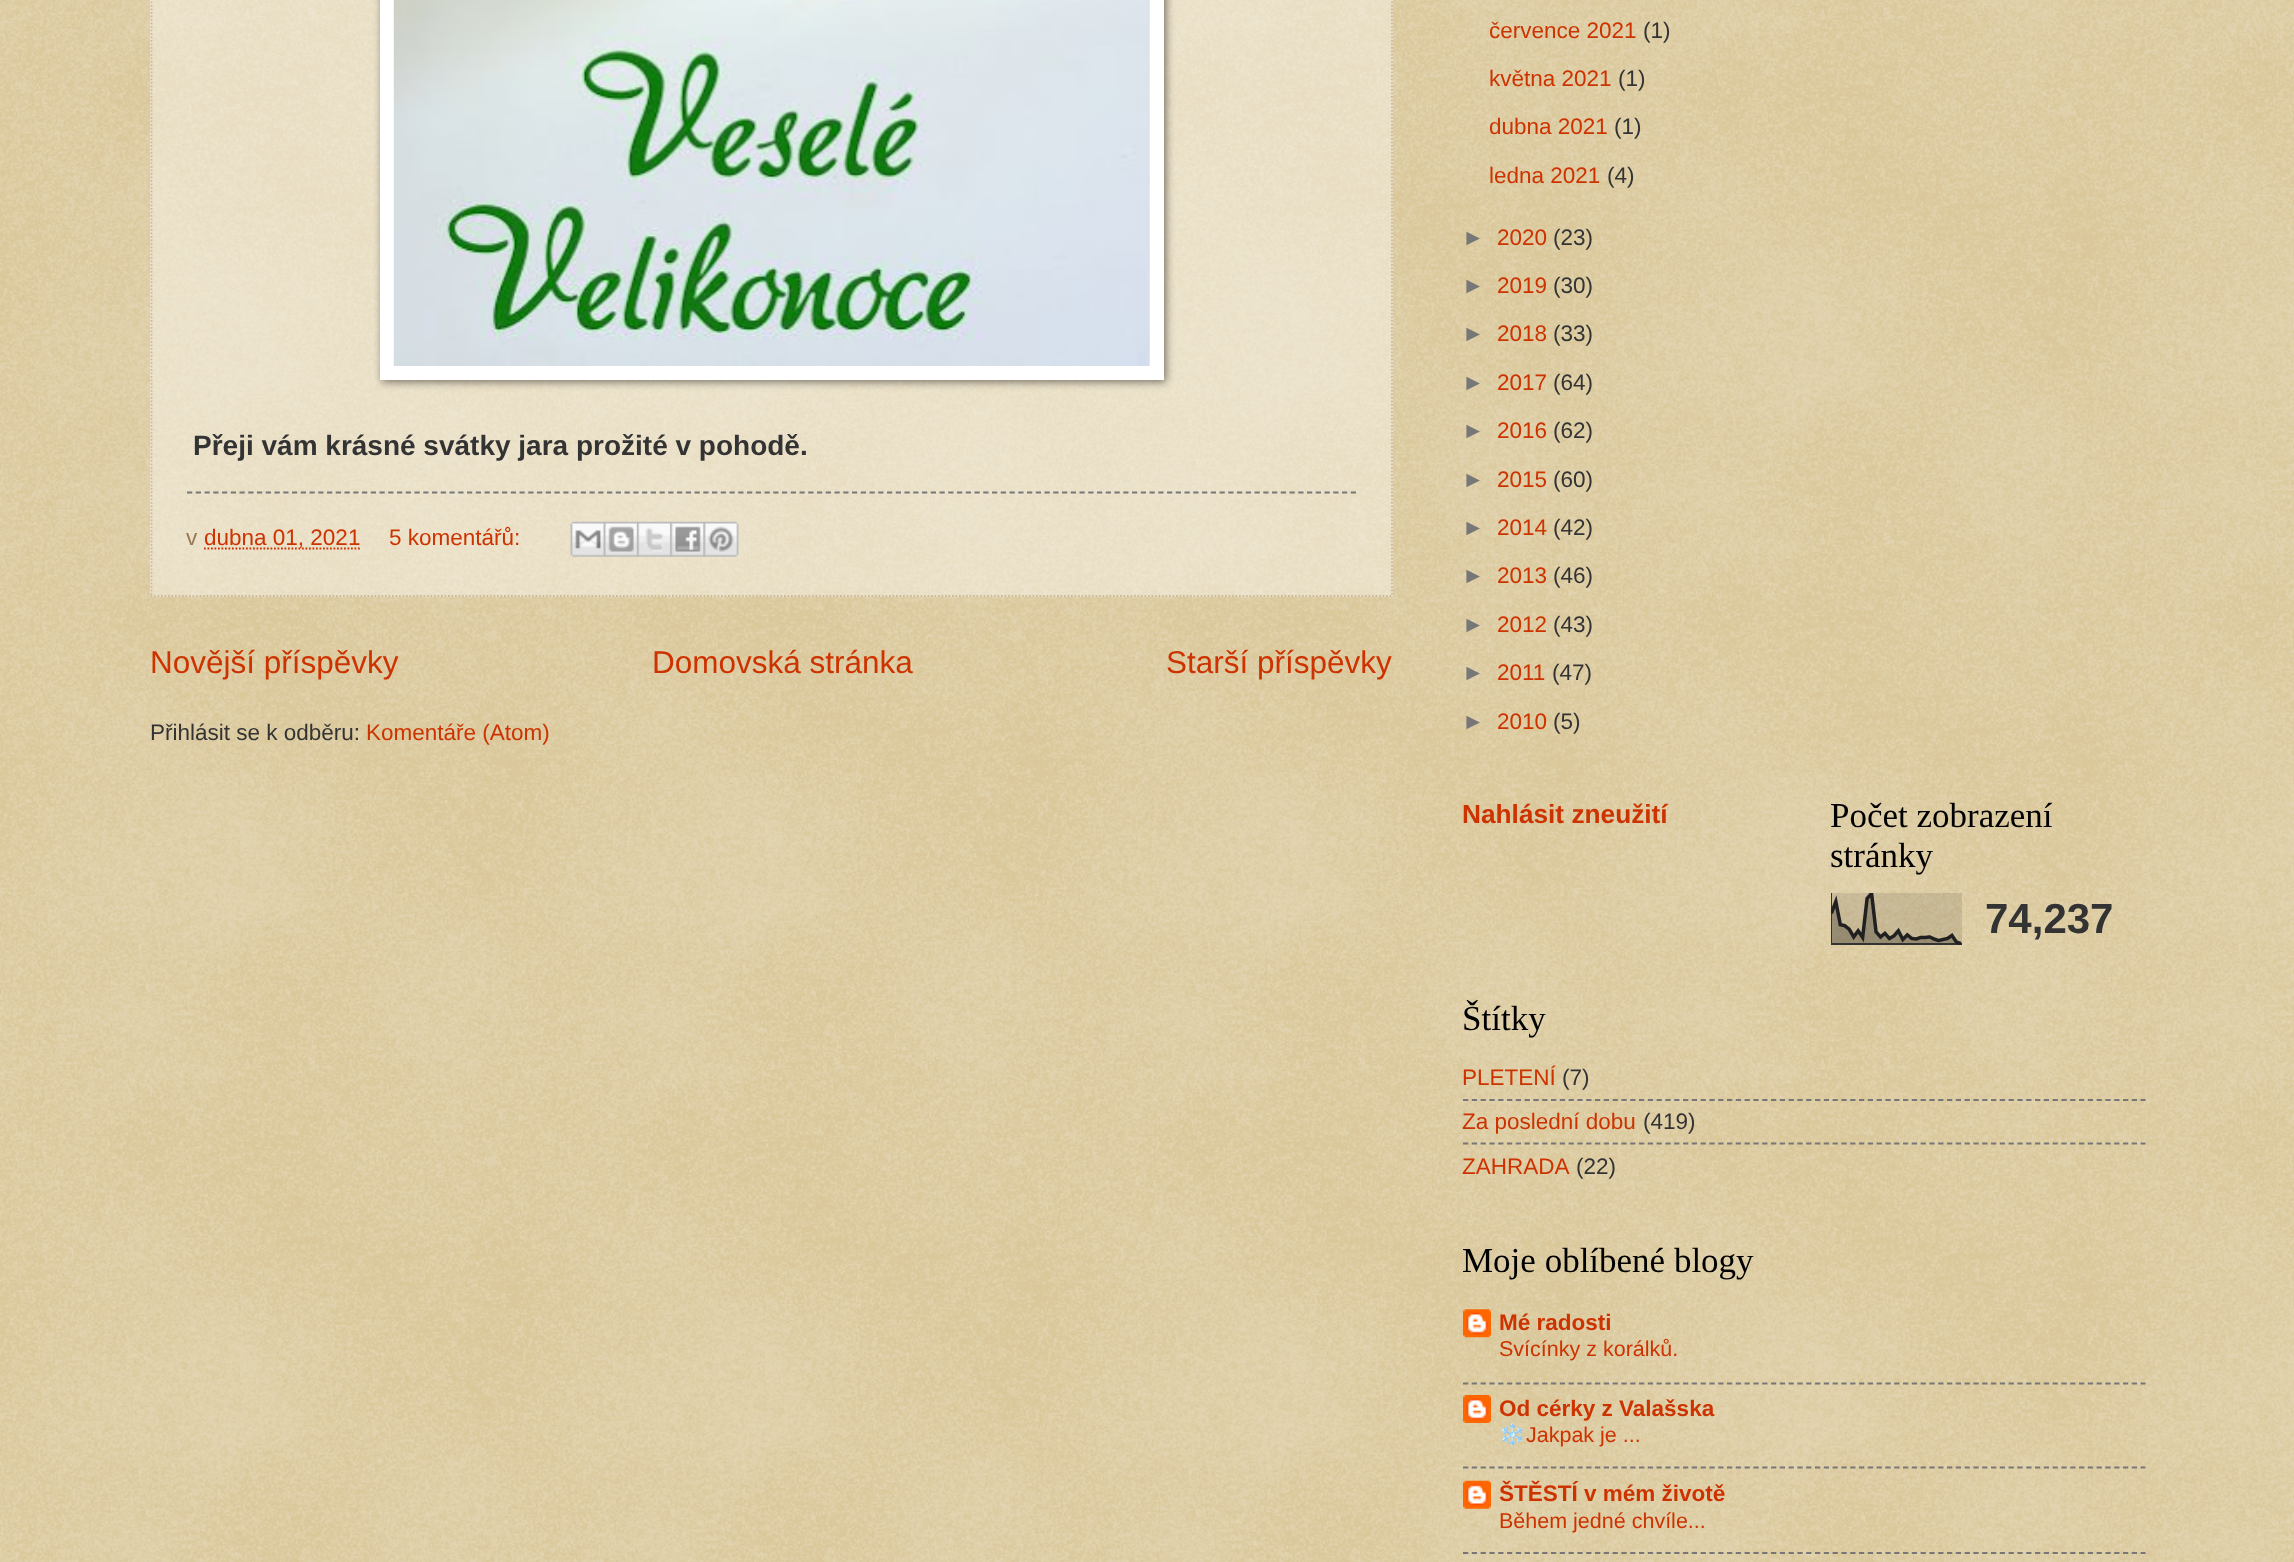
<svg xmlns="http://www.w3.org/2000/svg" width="2294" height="1562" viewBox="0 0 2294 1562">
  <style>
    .t1 { font: bold 28px Liberation Sans; fill: #333; }
    .t2 { font: 22.5px Liberation Sans; fill: #975; }
    .t3 { font: 22.5px Liberation Sans; fill: #c30; }
    .t4 { font: 31.5px Liberation Sans; fill: #c30; }
    .t5 { font: 22.5px Liberation Sans; fill: #333; }
    .t6 { font: 22.5px Liberation Sans; fill: #777; }
    .t7 { font: bold 26.25px Liberation Sans; fill: #c30; }
    .t8 { font: 35px Liberation Serif; fill: #000; }
    .t9 { font: bold 42px Liberation Sans; fill: #333; }
    .t10 { font: bold 22.5px Liberation Sans; fill: #c30; }
    .t11 { font: 21.5px Liberation Sans; fill: #c30; }
    .t12 { font: 21.5px Noto Color Emoji; fill: #c30; }
  </style>
  <rect width="100%" height="100%" fill="#c0a154"/>
  <image x="0" y="0" width="2294" height="1562" href="images/1.png"/>
  <rect x="150" y="0" width="1243" height="597" fill="#ffffff66"/>
  <path d="M1392-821V597" fill="none" stroke="#cb9" stroke-width="1.8" stroke-dasharray="1.75 1.75"/>
  <path d="M150.5 596H1393" fill="none" stroke="#cb9" stroke-width="1.8" stroke-dasharray="1.75 1.75"/>
  <path d="M151.5-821V597" fill="none" stroke="#cb9" stroke-width="1.8" stroke-dasharray="1.75 1.75"/>
  <rect x="382" y="-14" width="784" height="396" fill="#00000080" filter="blur(4.5px)"/>
  <rect x="380" y="0" width="784" height="380" fill="#fff"/>
  <image x="393" y="0" width="757" height="366" href="images/2.png"/>
  <text x="193" y="455" class="t1">Přeji vám krásné svátky jara prožité v pohodě.</text>
  <path d="M187 492.5H1356" fill="none" stroke="#777" stroke-width="1.8" stroke-dasharray="5.25 3.5"/>
  <text x="186" y="545" class="t2">v</text>
  <path d="M204 548.5H360.5" fill="none" stroke="#c30" stroke-width="1.8" stroke-dasharray="1.75 1.75"/>
  <text x="204" y="545" class="t3">dubna 01, 2021</text>
  <text x="389" y="545" class="t3">5 komentářů:</text>
  <image x="570" y="521" width="36" height="36" href="images/3.png"/>
  <image x="603" y="521" width="36" height="36" href="images/4.png"/>
  <image x="637" y="521" width="35" height="36" href="images/5.png"/>
  <image x="670" y="521" width="36" height="36" href="images/6.png"/>
  <image x="703" y="521" width="36" height="36" href="images/7.png"/>
  <text x="150" y="673" class="t4">Novější příspěvky</text>
  <text x="652" y="673" class="t4">Domovská stránka</text>
  <text x="1166" y="673" class="t4">Starší příspěvky</text>
  <text x="150" y="740" class="t5">Přihlásit se k odběru:</text>
  <text x="366" y="740" class="t3">Komentáře (Atom)</text>
  <text x="1489" y="38" class="t3">července 2021</text>
  <text x="1643" y="38" class="t5">(1)</text>
  <text x="1489" y="86" class="t3">května 2021</text>
  <text x="1618" y="86" class="t5">(1)</text>
  <text x="1489" y="134" class="t3">dubna 2021</text>
  <text x="1614" y="134" class="t5">(1)</text>
  <text x="1489" y="183" class="t3">ledna 2021</text>
  <text x="1607" y="183" class="t5">(4)</text>
  <text x="1462" y="245" class="t6">►</text>
  <text x="1497" y="245" class="t3">2020</text>
  <text x="1553" y="245" class="t5">(23)</text>
  <text x="1462" y="293" class="t6">►</text>
  <text x="1497" y="293" class="t3">2019</text>
  <text x="1553" y="293" class="t5">(30)</text>
  <text x="1462" y="341" class="t6">►</text>
  <text x="1497" y="341" class="t3">2018</text>
  <text x="1553" y="341" class="t5">(33)</text>
  <text x="1462" y="390" class="t6">►</text>
  <text x="1497" y="390" class="t3">2017</text>
  <text x="1553" y="390" class="t5">(64)</text>
  <text x="1462" y="438" class="t6">►</text>
  <text x="1497" y="438" class="t3">2016</text>
  <text x="1553" y="438" class="t5">(62)</text>
  <text x="1462" y="487" class="t6">►</text>
  <text x="1497" y="487" class="t3">2015</text>
  <text x="1553" y="487" class="t5">(60)</text>
  <text x="1462" y="535" class="t6">►</text>
  <text x="1497" y="535" class="t3">2014</text>
  <text x="1553" y="535" class="t5">(42)</text>
  <text x="1462" y="583" class="t6">►</text>
  <text x="1497" y="583" class="t3">2013</text>
  <text x="1553" y="583" class="t5">(46)</text>
  <text x="1462" y="632" class="t6">►</text>
  <text x="1497" y="632" class="t3">2012</text>
  <text x="1553" y="632" class="t5">(43)</text>
  <text x="1462" y="680" class="t6">►</text>
  <text x="1497" y="680" class="t3">2011</text>
  <text x="1552" y="680" class="t5">(47)</text>
  <text x="1462" y="729" class="t6">►</text>
  <text x="1497" y="729" class="t3">2010</text>
  <text x="1553" y="729" class="t5">(5)</text>
  <text x="1462" y="823" class="t7">Nahlásit zneužití</text>
  <text x="1830" y="827" class="t8">Počet zobrazení</text>
  <text x="1830" y="867" class="t8">stránky</text>
  <image x="1831" y="893" width="131" height="52" href="images/8.png"/>
  <text x="1985" y="933" class="t9">74,237</text>
  <text x="1462" y="1030" class="t8">Štítky</text>
  <text x="1462" y="1085" class="t3">PLETENÍ</text>
  <text x="1562" y="1085" class="t5">(7)</text>
  <path d="M1463 1100H2145.5" fill="none" stroke="#777" stroke-width="1.8" stroke-dasharray="5.25 3.55"/>
  <text x="1462" y="1129" class="t3">Za poslední dobu</text>
  <text x="1643" y="1129" class="t5">(419)</text>
  <path d="M1463 1143.5H2145.5" fill="none" stroke="#777" stroke-width="1.8" stroke-dasharray="5.25 3.55"/>
  <text x="1462" y="1174" class="t3">ZAHRADA</text>
  <text x="1576" y="1174" class="t5">(22)</text>
  <text x="1462" y="1272" class="t8">Moje oblíbené blogy</text>
  <image x="1463" y="1309" width="28" height="29" href="images/9.png"/>
  <text x="1499" y="1330" class="t10">Mé radosti</text>
  <text x="1499" y="1356" class="t11">Svícínky z korálků.</text>
  <path d="M1463 1383.5H2145.5" fill="none" stroke="#777" stroke-width="1.8" stroke-dasharray="5.25 3.55"/>
  <image x="1463" y="1395" width="28" height="28" href="images/10.png"/>
  <text x="1499" y="1416" class="t10">Od cérky z Valašska</text>
  <text x="1499" y="1442" class="t12">❄️</text>
  <text x="1526" y="1442" class="t11">Jakpak je ...</text>
  <path d="M1463 1467.5H2145.5" fill="none" stroke="#777" stroke-width="1.8" stroke-dasharray="5.25 3.55"/>
  <image x="1463" y="1480" width="28" height="29" href="images/11.png"/>
  <text x="1499" y="1501" class="t10">ŠTĚSTÍ v mém životě</text>
  <text x="1499" y="1528" class="t11">Během jedné chvíle...</text>
  <path d="M1463 1553H2145.5" fill="none" stroke="#777" stroke-width="1.8" stroke-dasharray="5.25 3.55"/>
</svg>
